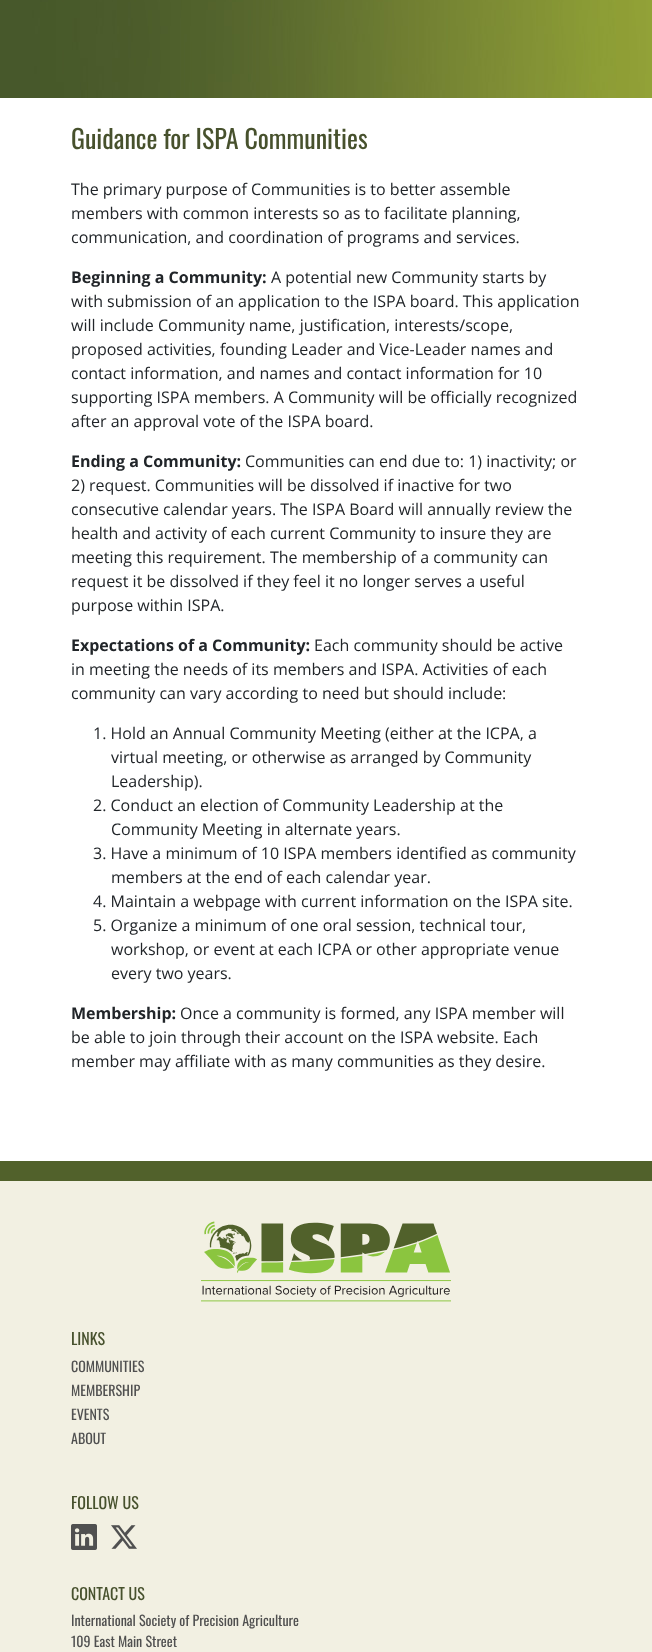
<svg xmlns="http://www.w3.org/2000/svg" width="652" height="1652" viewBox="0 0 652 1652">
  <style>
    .t1 { font: 26px Oswald; fill: #47512d; }
    .t2 { font: 16px Open Sans; fill: #212529; }
    .t3 { font: bold 16px Open Sans; fill: #212529; }
    .t4 { font: 16px Oswald; fill: #47512d; }
    .t5 { font: 14px Oswald; fill: #505050; }
  </style>
  <rect width="100%" height="100%" fill="#fff"/>
  <image x="0" y="0" width="652" height="98" href="images/1.png"/>
  <text x="71" y="149" class="t1">Guidance for ISPA Communities</text>
  <text x="71" y="195" class="t2">The primary purpose of Communities is to better assemble</text>
  <text x="71" y="219" class="t2">members with common interests so as to facilitate planning,</text>
  <text x="71" y="243" class="t2">communication, and coordination of programs and services.</text>
  <text x="71" y="283" class="t3">Beginning a Community:</text>
  <text x="271" y="283" class="t2">A potential new Community starts by</text>
  <text x="71" y="307" class="t2">with submission of an application to the ISPA board. This application</text>
  <text x="71" y="331" class="t2">will include Community name, justification, interests/scope,</text>
  <text x="71" y="355" class="t2">proposed activities, founding Leader and Vice-Leader names and</text>
  <text x="71" y="379" class="t2">contact information, and names and contact information for 10</text>
  <text x="71" y="403" class="t2">supporting ISPA members. A Community will be officially recognized</text>
  <text x="71" y="427" class="t2">after an approval vote of the ISPA board.</text>
  <text x="71" y="467" class="t3">Ending a Community:</text>
  <text x="245" y="467" class="t2">Communities can end due to: 1) inactivity; or</text>
  <text x="71" y="491" class="t2">2) request. Communities will be dissolved if inactive for two</text>
  <text x="71" y="515" class="t2">consecutive calendar years. The ISPA Board will annually review the</text>
  <text x="71" y="539" class="t2">health and activity of each current Community to insure they are</text>
  <text x="71" y="563" class="t2">meeting this requirement. The membership of a community can</text>
  <text x="71" y="587" class="t2">request it be dissolved if they feel it no longer serves a useful</text>
  <text x="71" y="611" class="t2">purpose within ISPA.</text>
  <text x="71" y="651" class="t3">Expectations of a Community:</text>
  <text x="314" y="651" class="t2">Each community should be active</text>
  <text x="71" y="675" class="t2">in meeting the needs of its members and ISPA. Activities of each</text>
  <text x="71" y="699" class="t2">community can vary according to need but should include:</text>
  <text x="93" y="739" class="t2">1. Hold an Annual Community Meeting (either at the ICPA, a</text>
  <text x="111" y="763" class="t2">virtual meeting, or otherwise as arranged by Community</text>
  <text x="111" y="787" class="t2">Leadership).</text>
  <text x="93" y="811" class="t2">2. Conduct an election of Community Leadership at the</text>
  <text x="111" y="835" class="t2">Community Meeting in alternate years.</text>
  <text x="93" y="859" class="t2">3. Have a minimum of 10 ISPA members identified as community</text>
  <text x="111" y="883" class="t2">members at the end of each calendar year.</text>
  <text x="93" y="907" class="t2">4. Maintain a webpage with current information on the ISPA site.</text>
  <text x="93" y="931" class="t2">5. Organize a minimum of one oral session, technical tour,</text>
  <text x="111" y="955" class="t2">workshop, or event at each ICPA or other appropriate venue</text>
  <text x="111" y="979" class="t2">every two years.</text>
  <text x="71" y="1019" class="t3">Membership:</text>
  <text x="180" y="1019" class="t2">Once a community is formed, any ISPA member will</text>
  <text x="71" y="1043" class="t2">be able to join through their account on the ISPA website. Each</text>
  <text x="71" y="1067" class="t2">member may affiliate with as many communities as they desire.</text>
  <rect x="0" y="1181" width="652" height="471" fill="#f2f0e2"/>
  <rect x="0" y="1161" width="652" height="20" fill="#51612b"/>
  <image x="201" y="1221" width="250" height="81" href="images/2.png"/>
  <text x="71" y="1345" class="t4">LINKS</text>
  <text x="71" y="1372" class="t5">COMMUNITIES</text>
  <text x="71" y="1396" class="t5">MEMBERSHIP</text>
  <text x="71" y="1420" class="t5">EVENTS</text>
  <text x="71" y="1444" class="t5">ABOUT</text>
  <text x="71" y="1509" class="t4">FOLLOW US</text>
  <image x="71" y="1524" width="26" height="26" href="images/3.png"/>
  <image x="111" y="1525" width="26" height="24" href="images/4.png"/>
  <text x="71" y="1600" class="t4">CONTACT US</text>
  <text x="71" y="1626" class="t5">International Society of Precision Agriculture</text>
  <text x="71" y="1647" class="t5">109 East Main Street</text>
</svg>
